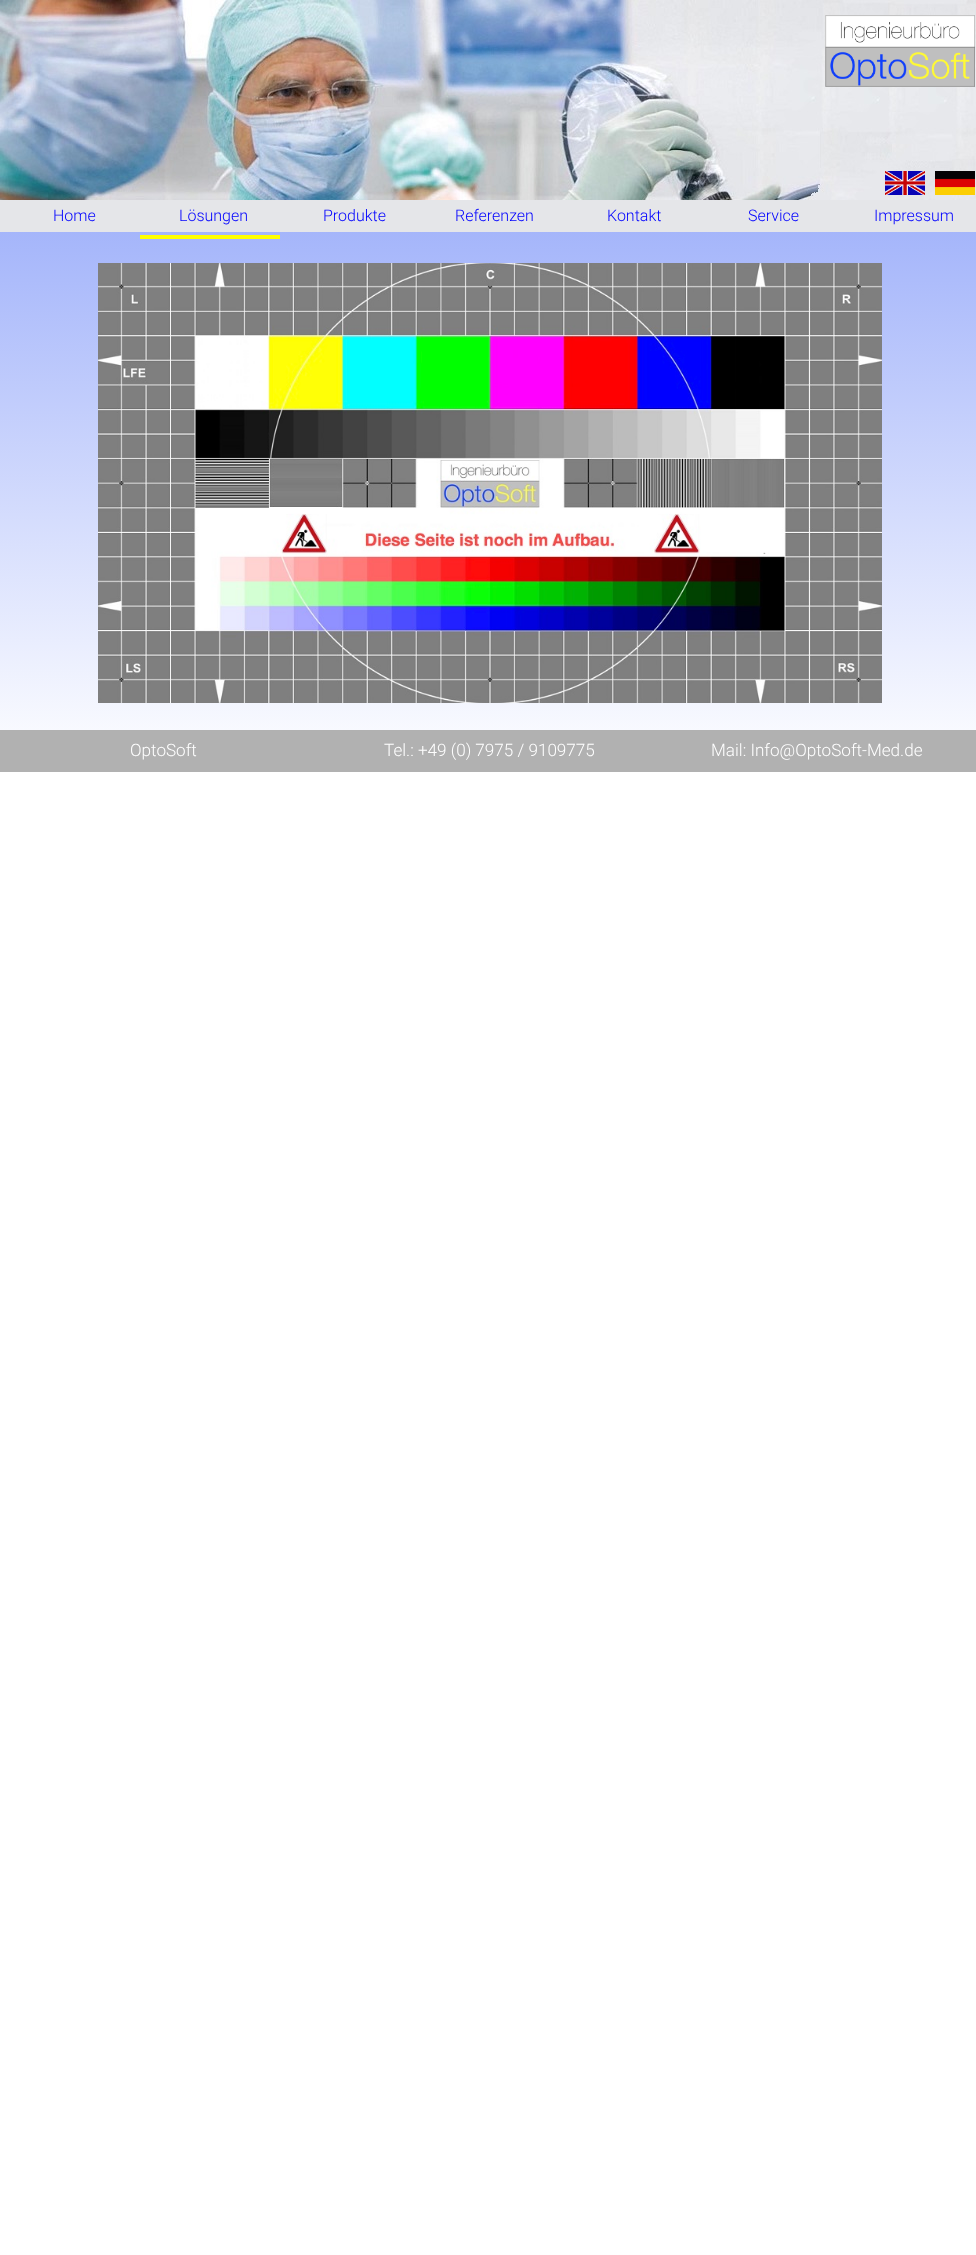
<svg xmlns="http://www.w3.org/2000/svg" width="976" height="2255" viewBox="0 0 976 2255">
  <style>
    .t1 { font: 300 16px Roboto; fill: #00f; }
    .t2 { font: 300 17.1px Roboto; fill: #fff; }
  </style>
  <defs>
    <linearGradient id="g1" gradientUnits="userSpaceOnUse" x1="488" y1="0" x2="488" y2="772"><stop offset="0.2" stop-color="#98abfa"/><stop offset="1" stop-color="#fff"/></linearGradient>
  </defs>
  <rect width="100%" height="100%" fill="#fff"/>
  <rect x="0" y="232" width="976" height="498" fill="url(#g1)"/>
  <image x="0" y="0" width="976" height="200" href="images/1.png"/>
  <image x="825" y="15" width="150" height="72" href="images/2.png"/>
  <image x="885" y="171" width="40" height="24" href="images/3.png"/>
  <image x="935" y="171" width="40" height="24" href="images/4.png"/>
  <rect x="0" y="200" width="976" height="32" fill="#e5e6e9"/>
  <text x="53" y="221" class="t1">Home</text>
  <text x="179" y="221" class="t1">Lösungen</text>
  <text x="323" y="221" class="t1">Produkte</text>
  <text x="455" y="221" class="t1">Referenzen</text>
  <text x="607" y="221" class="t1">Kontakt</text>
  <text x="748" y="221" class="t1">Service</text>
  <text x="874" y="221" class="t1">Impressum</text>
  <rect x="140" y="235" width="140" height="4" fill="#ff0"/>
  <image x="98" y="263" width="784" height="440" href="images/5.png"/>
  <rect x="0" y="730" width="976" height="42" fill="#b1b1b1"/>
  <text x="130" y="756" class="t2">OptoSoft</text>
  <text x="384" y="756" class="t2">Tel.: +49 (0) 7975 / 9109775</text>
  <text x="711" y="756" class="t2">Mail: Info@OptoSoft-Med.de</text>
</svg>
